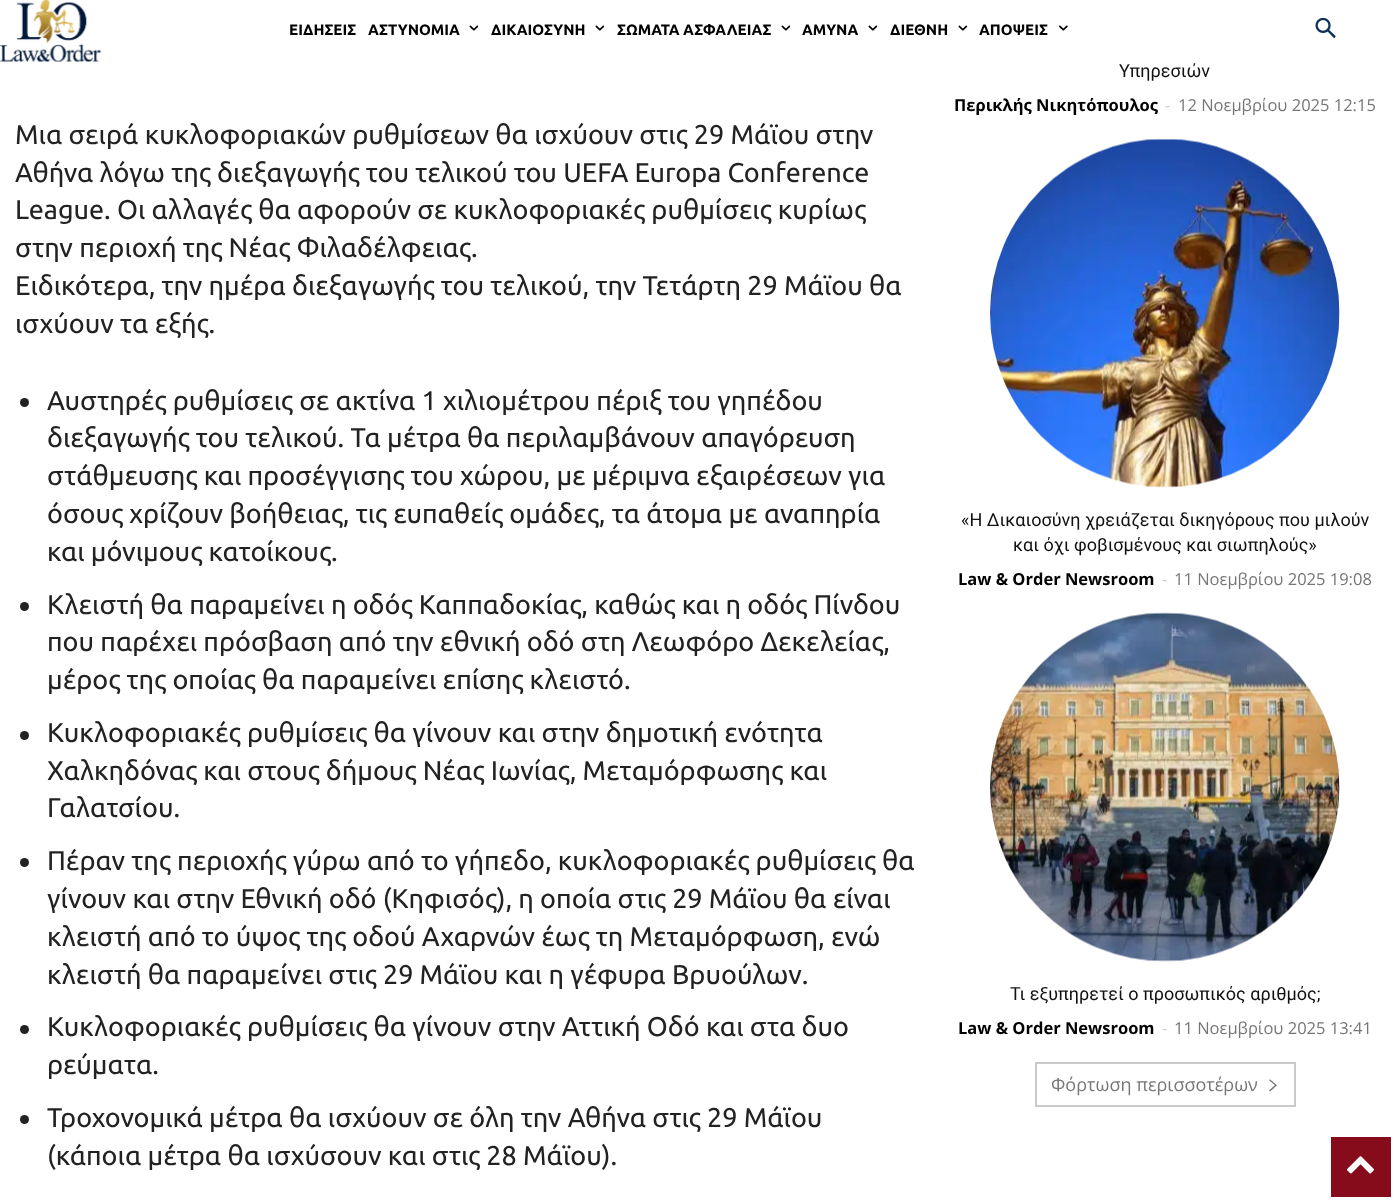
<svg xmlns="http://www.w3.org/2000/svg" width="1398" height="1202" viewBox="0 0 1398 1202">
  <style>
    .t1 { font: bold 15px Ubuntu; fill: #000; }
    .t2 { font: 27px Ubuntu; fill: #222; }
    .t3 { font: 18px Roboto; fill: #111; }
    .t4 { font: bold 16.5px Open Sans; fill: #000; }
    .t5 { font: 16.5px Open Sans; fill: #ccc; }
    .t6 { font: 16.5px Open Sans; fill: #767676; }
    .t7 { font: 18px Open Sans; fill: #767676; }
  </style>
  <rect width="100%" height="100%" fill="#fff"/>
  <image x="0" y="0" width="102" height="62" href="images/1.png"/>
  <text x="289" y="35" class="t1">ΕΙΔΗΣΕΙΣ</text>
  <text x="368" y="35" class="t1">ΑΣΤΥΝΟΜΙΑ</text>
  <image x="469" y="25" width="10" height="6" href="images/2.png"/>
  <text x="491" y="35" class="t1">ΔΙΚΑΙΟΣΥΝΗ</text>
  <image x="595" y="25" width="10" height="6" href="images/2.png"/>
  <text x="617" y="35" class="t1">ΣΩΜΑΤΑ ΑΣΦΑΛΕΙΑΣ</text>
  <image x="781" y="25" width="10" height="6" href="images/2.png"/>
  <text x="802" y="35" class="t1">ΑΜΥΝΑ</text>
  <image x="868" y="25" width="10" height="6" href="images/2.png"/>
  <text x="890" y="35" class="t1">ΔΙΕΘΝΗ</text>
  <image x="958" y="25" width="10" height="6" href="images/3.png"/>
  <text x="979" y="35" class="t1">ΑΠΟΨΕΙΣ</text>
  <image x="1059" y="25" width="9" height="6" href="images/4.png"/>
  <image x="1315" y="17" width="21" height="21" href="images/5.png"/>
  <text x="15" y="144" class="t2">Μια σειρά κυκλοφοριακών ρυθμίσεων θα ισχύουν στις 29 Μάϊου στην</text>
  <text x="15" y="182" class="t2">Αθήνα λόγω της διεξαγωγής του τελικού του UEFA Europa Conference</text>
  <text x="15" y="219" class="t2">League. Οι αλλαγές θα αφορούν σε κυκλοφοριακές ρυθμίσεις κυρίως</text>
  <text x="15" y="257" class="t2">στην περιοχή της Νέας Φιλαδέλφειας.</text>
  <text x="15" y="295" class="t2">Ειδικότερα, την ημέρα διεξαγωγής του τελικού, την Τετάρτη 29 Μάϊου θα</text>
  <text x="15" y="333" class="t2">ισχύουν τα εξής.</text>
  <circle cx="24.5" cy="402.5" r="4.5" fill="#222"/>
  <text x="47" y="410" class="t2">Αυστηρές ρυθμίσεις σε ακτίνα 1 χιλιομέτρου πέριξ του γηπέδου</text>
  <text x="47" y="447" class="t2">διεξαγωγής του τελικού. Τα μέτρα θα περιλαμβάνουν απαγόρευση</text>
  <text x="47" y="485" class="t2">στάθμευσης και προσέγγισης του χώρου, με μέριμνα εξαιρέσεων για</text>
  <text x="47" y="523" class="t2">όσους χρίζουν βοήθειας, τις ευπαθείς ομάδες, τα άτομα με αναπηρία</text>
  <text x="47" y="561" class="t2">και μόνιμους κατοίκους.</text>
  <circle cx="24.5" cy="606.5" r="4.5" fill="#222"/>
  <text x="47" y="614" class="t2">Κλειστή θα παραμείνει η οδός Καππαδοκίας, καθώς και η οδός Πίνδου</text>
  <text x="47" y="651" class="t2">που παρέχει πρόσβαση από την εθνική οδό στη Λεωφόρο Δεκελείας,</text>
  <text x="47" y="689" class="t2">μέρος της οποίας θα παραμείνει επίσης κλειστό.</text>
  <circle cx="24.5" cy="735.5" r="4.5" fill="#222"/>
  <text x="47" y="742" class="t2">Κυκλοφοριακές ρυθμίσεις θα γίνουν και στην δημοτική ενότητα</text>
  <text x="47" y="780" class="t2">Χαλκηδόνας και στους δήμους Νέας Ιωνίας, Μεταμόρφωσης και</text>
  <text x="47" y="817" class="t2">Γαλατσίου.</text>
  <circle cx="24.5" cy="862.5" r="4.5" fill="#222"/>
  <text x="47" y="870" class="t2">Πέραν της περιοχής γύρω από το γήπεδο, κυκλοφοριακές ρυθμίσεις θα</text>
  <text x="47" y="908" class="t2">γίνουν και στην Εθνική οδό (Κηφισός), η οποία στις 29 Μάϊου θα είναι</text>
  <text x="47" y="946" class="t2">κλειστή από το ύψος της οδού Αχαρνών έως τη Μεταμόρφωση, ενώ</text>
  <text x="47" y="984" class="t2">κλειστή θα παραμείνει στις 29 Μάϊου και η γέφυρα Βρυούλων.</text>
  <circle cx="24.5" cy="1029.5" r="4.5" fill="#222"/>
  <text x="47" y="1036" class="t2">Κυκλοφοριακές ρυθμίσεις θα γίνουν στην Αττική Οδό και στα δυο</text>
  <text x="47" y="1074" class="t2">ρεύματα.</text>
  <circle cx="24.5" cy="1119.5" r="4.5" fill="#222"/>
  <text x="47" y="1127" class="t2">Τροχονομικά μέτρα θα ισχύουν σε όλη την Αθήνα στις 29 Μάϊου</text>
  <text x="47" y="1165" class="t2">(κάποια μέτρα θα ισχύσουν και στις 28 Μάϊου).</text>
  <text x="1119" y="77" class="t3">Υπηρεσιών</text>
  <text x="954" y="111" class="t4">Περικλής Νικητόπουλος</text>
  <text x="1165" y="111" class="t5">-</text>
  <text x="1178" y="111" class="t6">12 Νοεμβρίου 2025 12:15</text>
  <image x="990" y="138" width="350" height="350" href="images/6.png"/>
  <text x="961" y="526" class="t3">«Η Δικαιοσύνη χρειάζεται δικηγόρους που μιλούν</text>
  <text x="1013" y="551" class="t3">και όχι φοβισμένους και σιωπηλούς»</text>
  <text x="958" y="585" class="t4">Law &amp; Order Newsroom</text>
  <text x="1162" y="585" class="t5">-</text>
  <text x="1174" y="585" class="t6">11 Νοεμβρίου 2025 19:08</text>
  <image x="990" y="612" width="350" height="350" href="images/7.png"/>
  <text x="1010" y="1000" class="t3">Τι εξυπηρετεί ο προσωπικός αριθμός;</text>
  <text x="958" y="1034" class="t4">Law &amp; Order Newsroom</text>
  <text x="1162" y="1034" class="t5">-</text>
  <text x="1174" y="1034" class="t6">11 Νοεμβρίου 2025 13:41</text>
  <rect x="1036" y="1063" width="259" height="43" fill="none" stroke="#c9c9c9" stroke-width="2"/>
  <text x="1051" y="1091" class="t7">Φόρτωση περισσοτέρων</text>
  <image x="1269" y="1079" width="8" height="13" href="images/8.png"/>
  <rect x="1331" y="1137" width="60" height="60" fill="#870c1b"/>
  <image x="1347" y="1156" width="27" height="18" href="images/9.png"/>
</svg>
